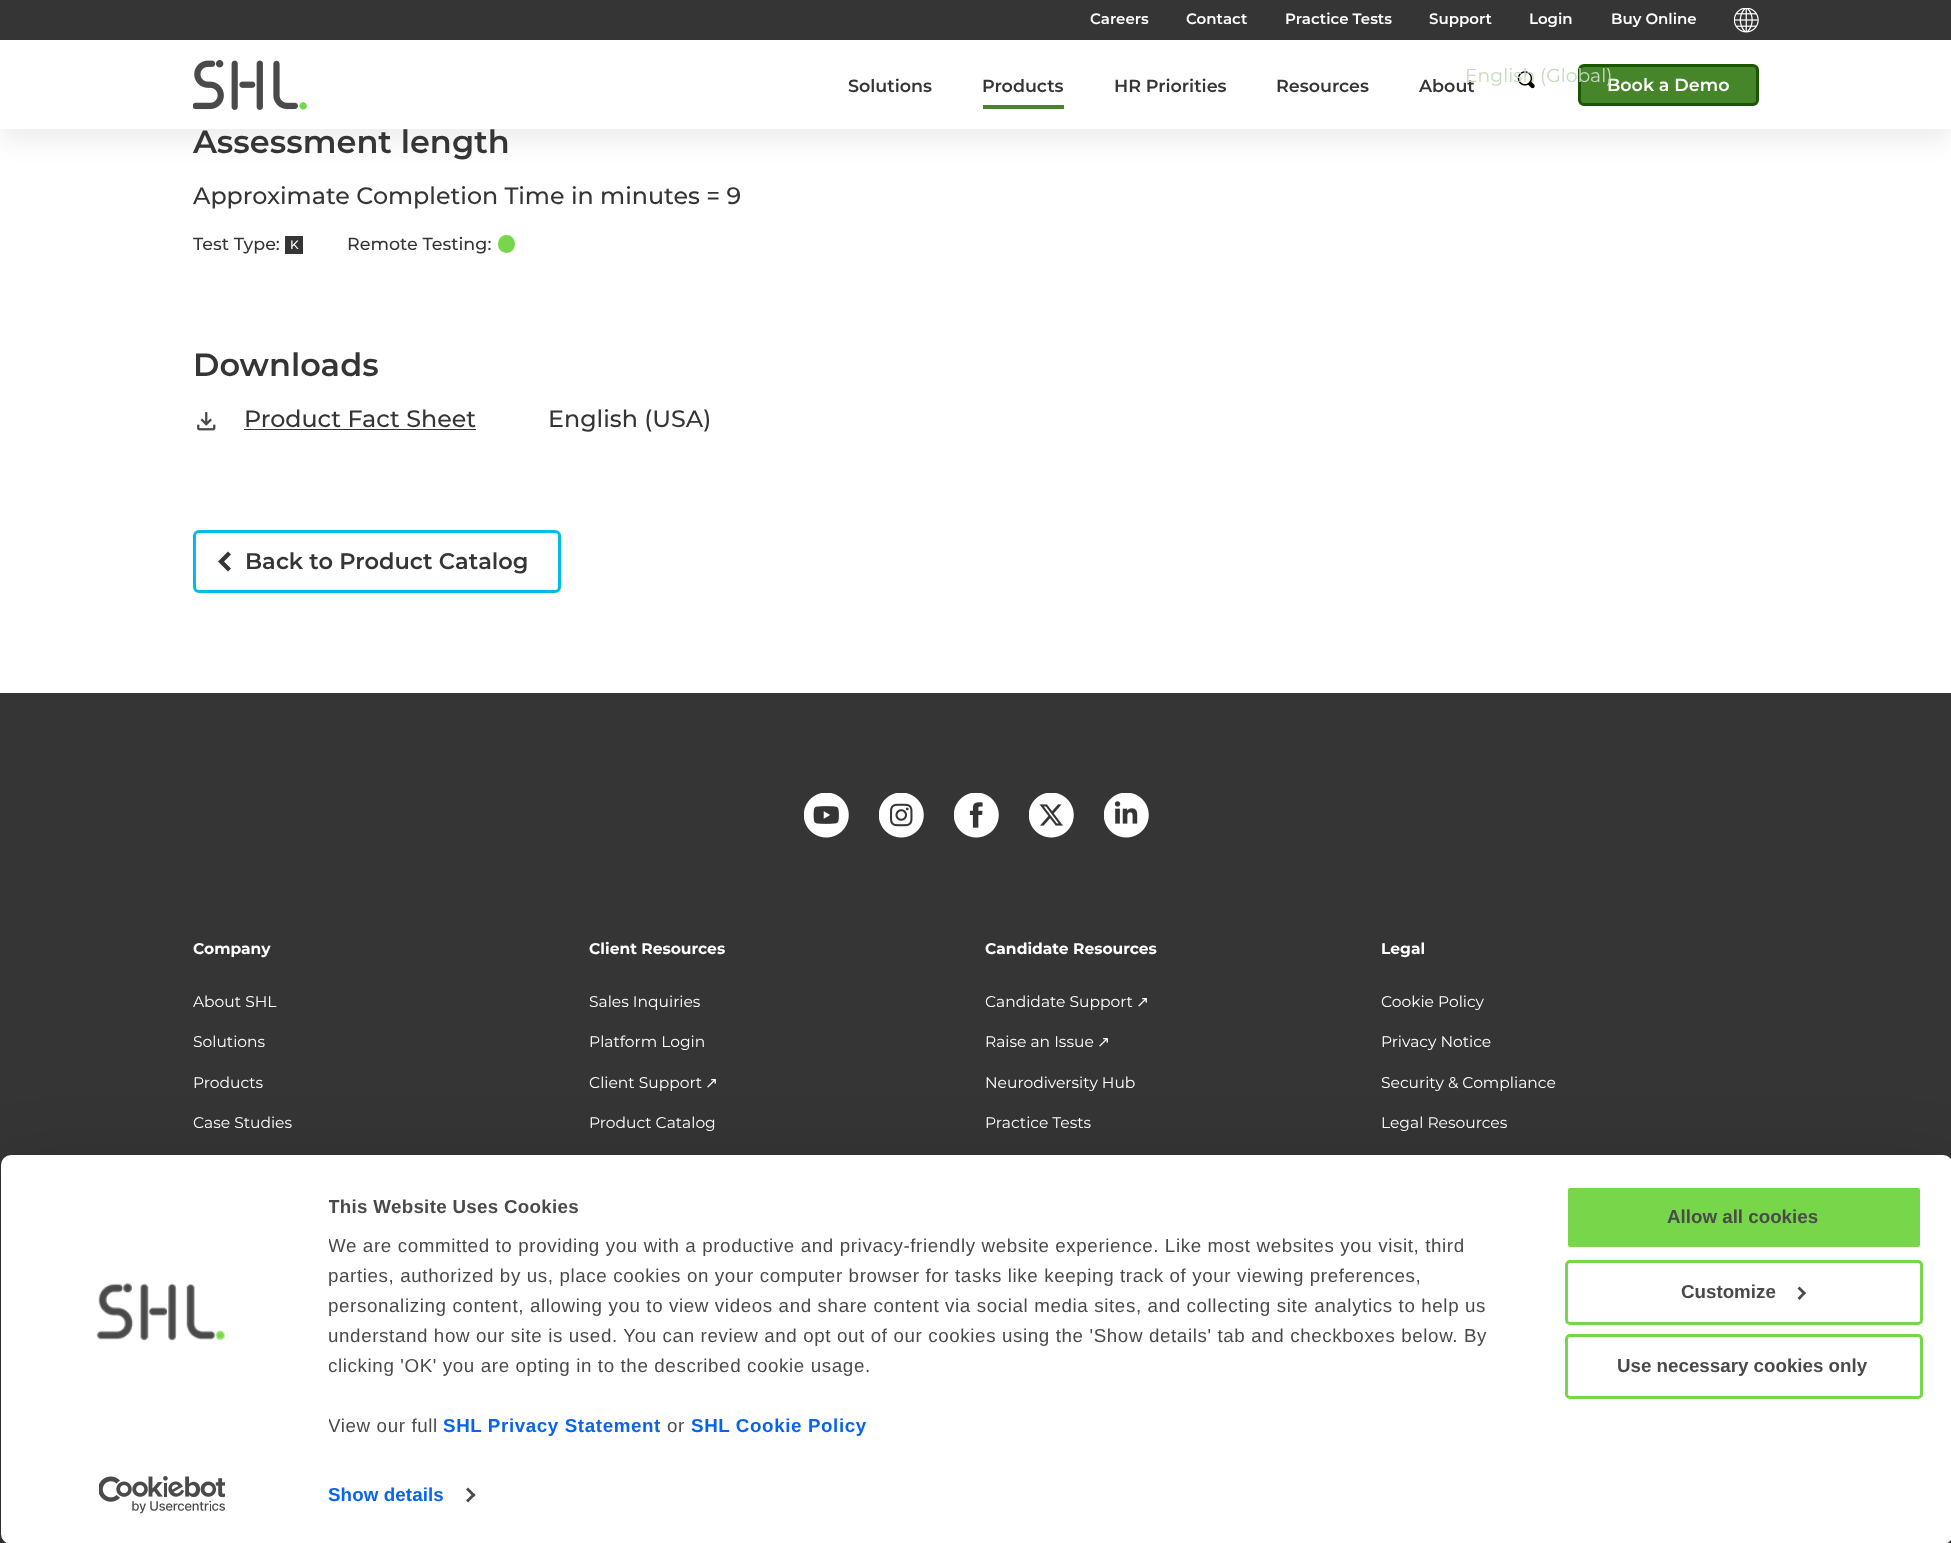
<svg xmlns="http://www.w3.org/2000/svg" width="1951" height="1543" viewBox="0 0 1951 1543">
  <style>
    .t1 { font: 600 15px Montserrat; fill: #fff; }
    .t2 { font: 600 17.5px Montserrat; fill: #353535; }
    .t3 { font: 600 17.5px Montserrat; fill: #fff; }
    .t4 { font: 18.75px Montserrat; fill: #c9d9c2; }
    .t5 { font: 600 32px Montserrat; fill: #353535; }
    .t6 { font: 500 23.75px Montserrat; fill: #353535; }
    .t7 { font: 500 17.5px Montserrat; fill: #353535; }
    .t8 { font: 500 12px Montserrat; fill: #fff; }
    .t9 { font: 600 22.5px Montserrat; fill: #353535; }
    .t10 { font: bold 15.5px Montserrat; fill: #fff; }
    .t11 { font: 15.5px Montserrat; fill: #fff; }
    .t12 { font: 15.5px DejaVu Sans; fill: #fff; }
    .t13 { font: bold 18.75px Liberation Sans; letter-spacing: 0.3px; fill: #4a4a4a; }
    .t14 { font: 18.75px Liberation Sans; letter-spacing: 0.62px; fill: #4a4a4a; }
    .t15 { font: bold 18.75px Liberation Sans; letter-spacing: 0.62px; fill: #0964ed; }
    .t16 { font: bold 18.75px Liberation Sans; letter-spacing: 0.1px; fill: #0964ed; }
    .t17 { font: bold 18.75px Liberation Sans; fill: #4a4a4a; }
  </style>
  <defs>
    <clipPath id="clip1"><rect x="329" y="1193" width="1200" height="248"/></clipPath>
  </defs>
  <rect width="100%" height="100%" fill="#fff"/>
  <rect x="0" y="13" width="1951" height="128" fill="#00000012" filter="blur(12.5px)"/>
  <rect x="0" y="40" width="1951" height="89" fill="#fff"/>
  <rect x="0" y="0" width="1951" height="40" fill="#353535"/>
  <text x="1090" y="24" class="t1">Careers</text>
  <text x="1186" y="24" class="t1">Contact</text>
  <text x="1285" y="24" class="t1">Practice Tests</text>
  <text x="1429" y="24" class="t1">Support</text>
  <text x="1529" y="24" class="t1">Login</text>
  <text x="1611" y="24" class="t1">Buy Online</text>
  <image x="1734" y="8" width="25" height="25" href="images/1.png"/>
  <text x="1419" y="92" class="t2">About</text>
  <image x="1517" y="71" width="18" height="18" href="images/3.png"/>
  <rect x="1579.5" y="65.5" width="178" height="39" rx="4.5" fill="#468529" stroke="#1b5700" stroke-width="3"/>
  <text x="1607" y="91" class="t3">Book a Demo</text>
  <text x="1465" y="82" class="t4">English (Global)</text>
  <image x="193" y="60" width="114" height="50" href="images/2.png"/>
  <text x="848" y="92" class="t2">Solutions</text>
  <text x="982" y="92" class="t2">Products</text>
  <rect x="983" y="105" width="81" height="4" fill="#468529"/>
  <text x="1114" y="92" class="t2">HR Priorities</text>
  <text x="1276" y="92" class="t2">Resources</text>
  <text x="193" y="153" class="t5">Assessment length</text>
  <text x="193" y="204" class="t6">Approximate Completion Time in minutes = 9</text>
  <text x="193" y="250" class="t7">Test Type:</text>
  <rect x="285" y="236" width="18" height="18" fill="#353535"/>
  <text x="290" y="249" class="t8">K</text>
  <text x="347" y="250" class="t7">Remote Testing:</text>
  <rect x="498" y="235" width="17" height="18" rx="8.5" fill="#78d64b"/>
  <text x="193" y="376" class="t5">Downloads</text>
  <image x="197" y="412" width="19" height="19" href="images/4.png"/>
  <text x="244" y="427" class="t6">Product Fact Sheet</text>
  <rect x="244" y="429" width="232" height="1" fill="#353535"/>
  <text x="548" y="427" class="t6">English (USA)</text>
  <rect x="194.5" y="531.5" width="365" height="60" rx="4.5" fill="none" stroke="#00bce8" stroke-width="3"/>
  <path d="M218 561.5L228 551.5L231 554.5L224 561.5L231 568.5L228 571.5Z" fill="#353535"/>
  <text x="245" y="569" class="t9">Back to Product Catalog</text>
  <rect x="0" y="693" width="1951" height="850" fill="#353535"/>
  <image x="804" y="793" width="45" height="45" href="images/5.png"/>
  <image x="879" y="793" width="45" height="45" href="images/6.png"/>
  <image x="954" y="793" width="45" height="45" href="images/7.png"/>
  <image x="1029" y="793" width="45" height="45" href="images/8.png"/>
  <image x="1104" y="793" width="45" height="45" href="images/9.png"/>
  <text x="193" y="954" class="t10">Company</text>
  <text x="193" y="1007" class="t11">About SHL</text>
  <text x="193" y="1047" class="t11">Solutions</text>
  <text x="193" y="1088" class="t11">Products</text>
  <text x="193" y="1128" class="t11">Case Studies</text>
  <text x="589" y="954" class="t10">Client Resources</text>
  <text x="589" y="1007" class="t11">Sales Inquiries</text>
  <text x="589" y="1047" class="t11">Platform Login</text>
  <text x="589" y="1088" class="t11">Client Support</text>
  <text x="705" y="1088" class="t12">↗</text>
  <text x="589" y="1128" class="t11">Product Catalog</text>
  <text x="985" y="954" class="t10">Candidate Resources</text>
  <text x="985" y="1007" class="t11">Candidate Support</text>
  <text x="1136" y="1007" class="t12">↗</text>
  <text x="985" y="1047" class="t11">Raise an Issue</text>
  <text x="1097" y="1047" class="t12">↗</text>
  <text x="985" y="1088" class="t11">Neurodiversity Hub</text>
  <text x="985" y="1128" class="t11">Practice Tests</text>
  <text x="1381" y="954" class="t10">Legal</text>
  <text x="1381" y="1007" class="t11">Cookie Policy</text>
  <text x="1381" y="1047" class="t11">Privacy Notice</text>
  <text x="1381" y="1088" class="t11">Security &amp; Compliance</text>
  <text x="1381" y="1128" class="t11">Legal Resources</text>
  <rect x="1" y="1193" width="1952" height="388" rx="10" fill="#0000004d" filter="blur(44px)"/>
  <rect x="1" y="1155" width="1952" height="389" rx="10" fill="#fff"/>
  <image x="96" y="1283" width="130" height="58" href="images/10.png"/>
  <image x="99" y="1476" width="126" height="38" href="images/11.png"/>
  <g clip-path="url(#clip1)">
    <text x="328" y="1213" class="t13">This Website Uses Cookies</text>
    <text x="328" y="1252" class="t14">We are committed to providing you with a productive and privacy-friendly website experience. Like most websites you visit, third</text>
    <text x="328" y="1282" class="t14">parties, authorized by us, place cookies on your computer browser for tasks like keeping track of your viewing preferences,</text>
    <text x="328" y="1312" class="t14">personalizing content, allowing you to view videos and share content via social media sites, and collecting site analytics to help us</text>
    <text x="328" y="1342" class="t14">understand how our site is used. You can review and opt out of our cookies using the 'Show details' tab and checkboxes below. By</text>
    <text x="328" y="1372" class="t14">clicking 'OK' you are opting in to the described cookie usage.</text>
    <text x="328" y="1432" class="t14">View our full</text>
  </g>
  <text x="443" y="1432" class="t15">SHL Privacy Statement</text>
  <text x="667" y="1432" class="t14">or</text>
  <text x="691" y="1432" class="t15">SHL Cookie Policy</text>
  <text x="328" y="1501" class="t16">Show details</text>
  <path d="M468 1487.5L475.5 1495L473.5 1497L466 1489.5Z" fill="#4a4a4a"/>
  <path d="M473.5 1493L475.5 1495L468 1502.5L466 1500.5Z" fill="#4a4a4a"/>
  <rect x="1566.5" y="1186.5" width="355" height="62" rx="3.5" fill="#78d64b" stroke="#fff" stroke-width="3"/>
  <text x="1667" y="1223" class="t17">Allow all cookies</text>
  <rect x="1566.5" y="1261.5" width="355" height="62" rx="3.5" fill="none" stroke="#78d64b" stroke-width="3"/>
  <text x="1681" y="1298" class="t17">Customize</text>
  <path d="M1799.5 1286.5L1806 1293L1804 1295L1797.5 1288.5Z" fill="#4a4a4a"/>
  <path d="M1804 1291.5L1806 1293L1799.5 1300L1797.5 1298Z" fill="#4a4a4a"/>
  <rect x="1566.5" y="1335.5" width="355" height="62" rx="3.5" fill="none" stroke="#78d64b" stroke-width="3"/>
  <text x="1617" y="1372" class="t17">Use necessary cookies only</text>
</svg>
